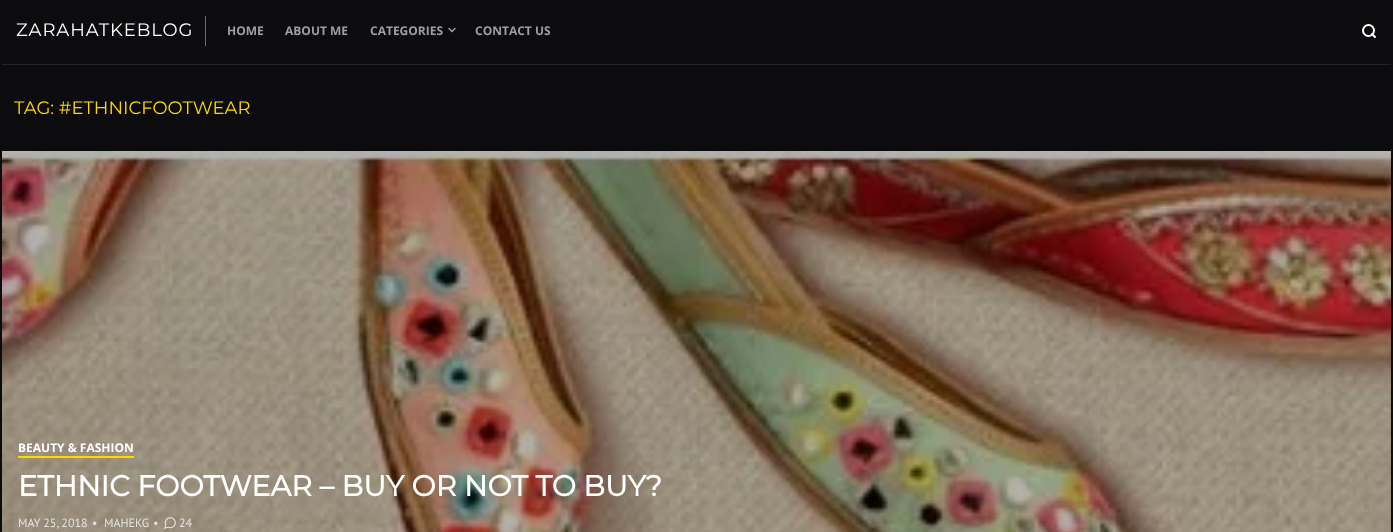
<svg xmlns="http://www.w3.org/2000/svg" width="1393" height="532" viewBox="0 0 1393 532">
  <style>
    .t1 { font: 100 18px Montserrat; letter-spacing: 0.9px; fill: #fff; }
    .t2 { font: bold 12px Open Sans; fill: #9c9fa0; }
    .t3 { font: 100 18px Montserrat; fill: #ffd800; }
    .t4 { font: bold 12px Open Sans; fill: #fff; }
    .t5 { font: bold 28.8px Montserrat; fill: #fff; }
    .t6 { font: 12px PT Sans; fill: #e5e2de; }
  </style>
  <rect width="100%" height="100%" fill="#0c0c0e"/>
  <rect x="205" y="16" width="1" height="30" fill="#6d6d6e"/>
  <text x="16" y="36" class="t1">ZARAHATKEBLOG</text>
  <text x="227" y="35" class="t2">HOME</text>
  <text x="285" y="35" class="t2">ABOUT ME</text>
  <text x="370" y="35" class="t2">CATEGORIES</text>
  <path d="M449 28.5L452 31.5L455 28.5" fill="none" stroke="#9c9fa0" stroke-width="1.5" stroke-linecap="round" stroke-linejoin="round"/>
  <text x="475" y="35" class="t2">CONTACT US</text>
  <circle cx="1368.5" cy="30.5" r="5.5" fill="none" stroke="#fff" stroke-width="2"/>
  <path d="M1375 37L1372 34" fill="none" stroke="#fff" stroke-width="2" stroke-linecap="round" stroke-linejoin="round"/>
  <rect x="2" y="64" width="1389" height="1" fill="#242426"/>
  <text x="14" y="114" class="t3">TAG: #ETHNICFOOTWEAR</text>
  <image x="2" y="151" width="1389" height="381" href="images/1.png"/>
  <text x="18" y="452" class="t4">BEAUTY &amp; FASHION</text>
  <rect x="18" y="456" width="116" height="2" fill="#ffd800"/>
  <text x="18" y="496" class="t5">ETHNIC FOOTWEAR – BUY OR NOT TO BUY?</text>
  <text x="18" y="527" class="t6">MAY 25, 2018</text>
  <text x="92" y="527" class="t6">•</text>
  <text x="104" y="527" class="t6">MAHEKG</text>
  <text x="153" y="527" class="t6">•</text>
  <image x="164" y="517" width="12" height="12" href="images/2.png"/>
  <text x="179" y="527" class="t6">24</text>
</svg>
